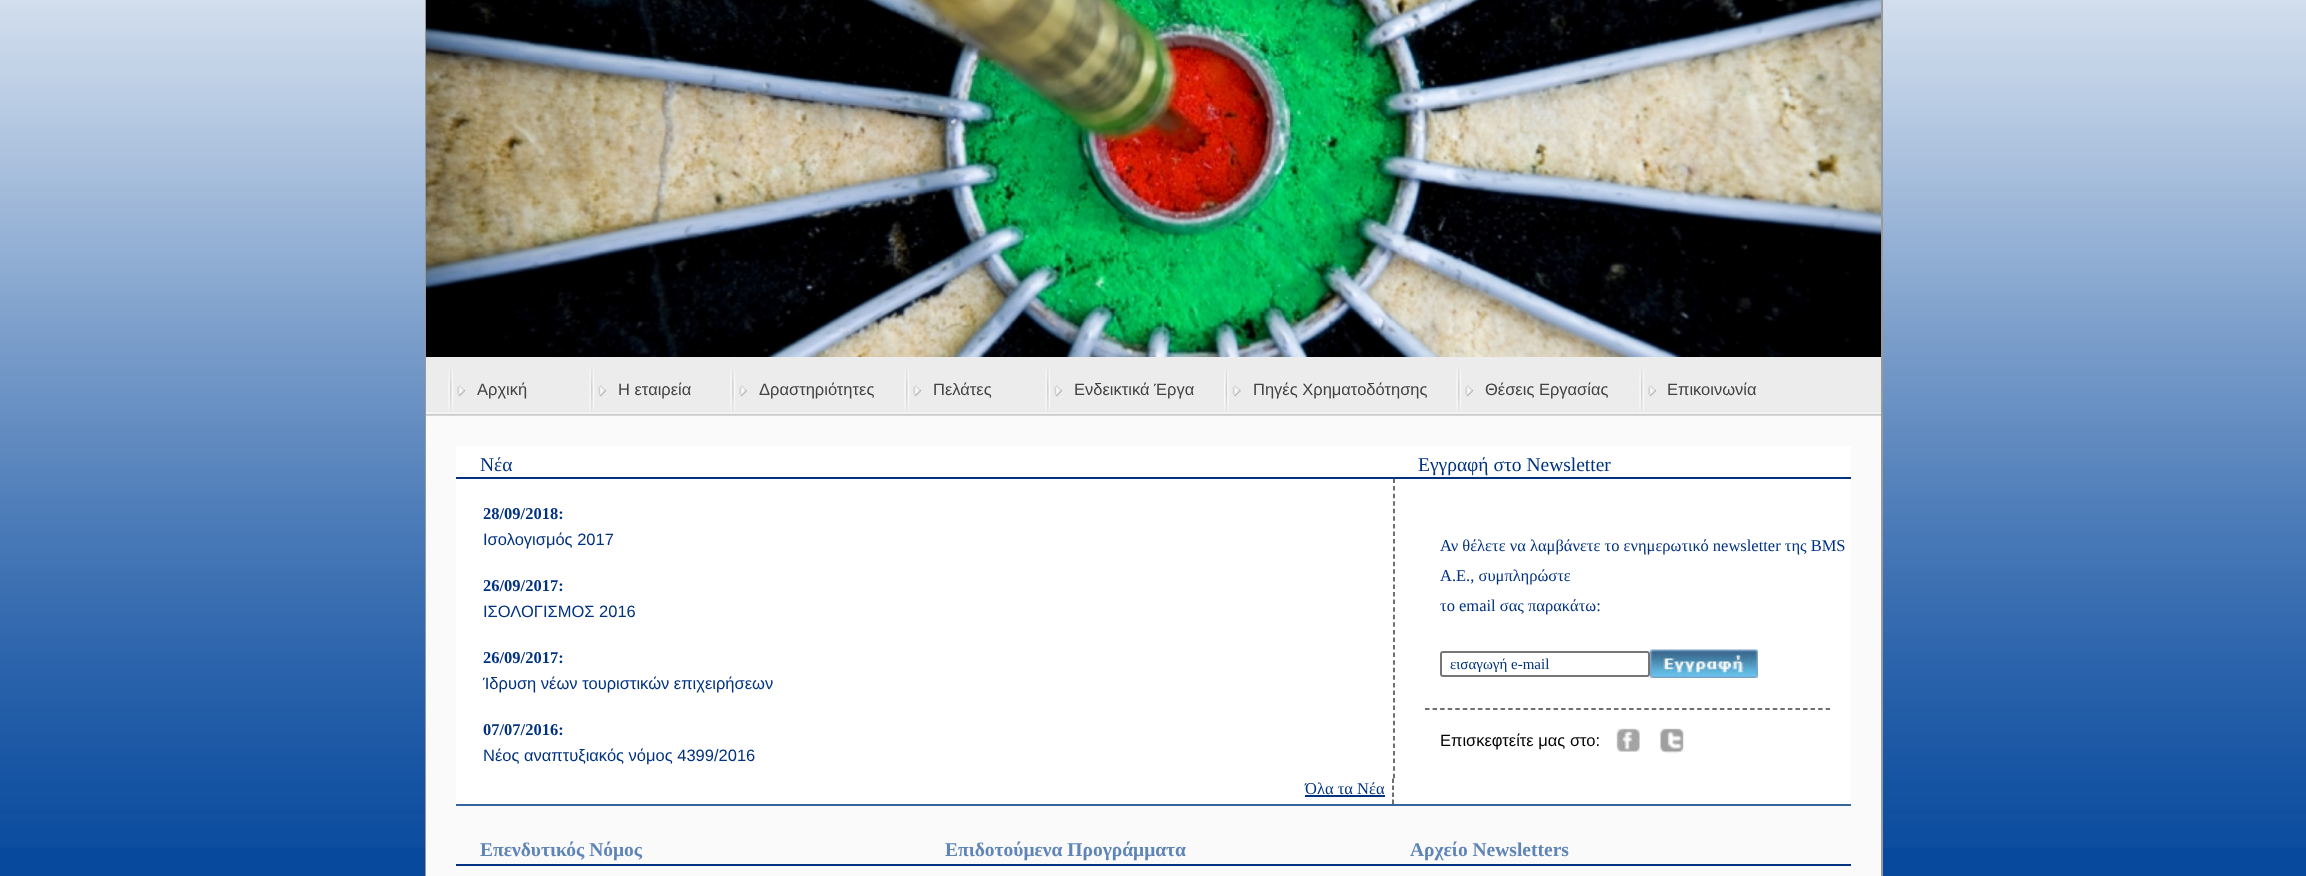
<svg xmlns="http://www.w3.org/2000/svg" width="2306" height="876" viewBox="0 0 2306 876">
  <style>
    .t1 { font: 16.5px Liberation Sans; fill: #424242; }
    .t2 { font: 19.5px Liberation Serif; fill: #003280; }
    .t3 { font: bold 16.5px Liberation Serif; fill: #003280; }
    .t4 { font: 16.5px Liberation Sans; fill: #003280; }
    .t5 { font: 16.5px Liberation Serif; fill: #003280; }
    .t6 { font: 15px Liberation Serif; fill: #003280; }
    .t7 { font: 16.5px Liberation Sans; fill: #000; }
    .t8 { font: bold 19.5px Liberation Serif; fill: #5f85b7; }
  </style>
  <defs>
    <clipPath id="clip1"><rect x="1446" y="656" width="198" height="16"/></clipPath>
  </defs>
  <rect width="100%" height="100%" fill="#07499d"/>
  <image x="0" y="0" width="2306" height="848" href="images/1.png"/>
  <rect x="426" y="-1" width="1456" height="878" fill="none" stroke="#999" stroke-width="2"/>
  <image x="426" y="0" width="1455" height="357" href="images/2.png"/>
  <rect x="426" y="357" width="1455" height="59" fill="#ececec"/>
  <image x="426" y="411" width="1455" height="5" href="images/3.png"/>
  <image x="448" y="368" width="17" height="43" href="images/4.png"/>
  <text x="477" y="395" class="t1">Αρχική</text>
  <image x="589" y="368" width="17" height="43" href="images/5.png"/>
  <text x="618" y="395" class="t1">Η εταιρεία</text>
  <image x="730" y="368" width="17" height="43" href="images/5.png"/>
  <text x="759" y="395" class="t1">Δραστηριότητες</text>
  <image x="904" y="368" width="17" height="43" href="images/4.png"/>
  <text x="933" y="395" class="t1">Πελάτες</text>
  <image x="1045" y="368" width="17" height="43" href="images/5.png"/>
  <text x="1074" y="395" class="t1">Ενδεικτικά Έργα</text>
  <image x="1224" y="367" width="17" height="44" href="images/6.png"/>
  <text x="1253" y="395" class="t1">Πηγές Χρηματοδότησης</text>
  <image x="1456" y="368" width="17" height="43" href="images/5.png"/>
  <text x="1485" y="395" class="t1">Θέσεις Εργασίας</text>
  <image x="1639" y="368" width="17" height="43" href="images/4.png"/>
  <text x="1667" y="395" class="t1">Επικοινωνία</text>
  <rect x="426" y="416" width="1455" height="460" fill="#fafafa"/>
  <rect x="456" y="446" width="1395" height="358" fill="#fff"/>
  <rect x="456" y="804" width="1395" height="2" fill="#369"/>
  <rect x="456" y="477" width="1395" height="2" fill="#003280"/>
  <text x="480" y="471" class="t2">Νέα</text>
  <text x="1418" y="471" class="t2">Εγγραφή στο Newsletter</text>
  <text x="483" y="519" class="t3">28/09/2018:</text>
  <text x="483" y="545" class="t4">Ισολογισμός 2017</text>
  <text x="483" y="591" class="t3">26/09/2017:</text>
  <text x="483" y="617" class="t4">ΙΣΟΛΟΓΙΣΜΟΣ 2016</text>
  <text x="483" y="663" class="t3">26/09/2017:</text>
  <text x="483" y="689" class="t4">Ίδρυση νέων τουριστικών επιχειρήσεων</text>
  <text x="483" y="735" class="t3">07/07/2016:</text>
  <text x="483" y="761" class="t4">Νέος αναπτυξιακός νόμος 4399/2016</text>
  <path d="M1394 478.5V778.5" fill="none" stroke="#404040" stroke-width="1.5" stroke-dasharray="4.5 3.07"/>
  <text x="1440" y="551" class="t5">Αν θέλετε να λαμβάνετε το ενημερωτικό newsletter της BMS</text>
  <text x="1440" y="581" class="t5">A.E., συμπληρώστε</text>
  <text x="1440" y="611" class="t5">το email σας παρακάτω:</text>
  <rect x="1441" y="652" width="208" height="24" rx="2" fill="none" stroke="#767676" stroke-width="2"/>
  <g clip-path="url(#clip1)">
    <text x="1450" y="669" class="t6">εισαγωγή e-mail</text>
  </g>
  <image x="1650" y="649" width="108" height="29" href="images/7.png"/>
  <path d="M1425 709H1830" fill="none" stroke="#404040" stroke-width="1.5" stroke-dasharray="4.5 3.06"/>
  <text x="1440" y="746" class="t7">Επισκεφτείτε μας στο:</text>
  <image x="1616" y="728" width="24" height="24" href="images/8.png"/>
  <image x="1659" y="727" width="25" height="27" href="images/9.png"/>
  <path d="M1393 778.5V804" fill="none" stroke="#404040" stroke-width="1.5" stroke-dasharray="4.5 2.5"/>
  <text x="1305" y="794" class="t5">Όλα τα Νέα</text>
  <rect x="1305" y="795" width="80" height="2" fill="#003280"/>
  <rect x="456" y="864" width="1395" height="2" fill="#003280"/>
  <text x="480" y="856" class="t8">Επενδυτικός Νόμος</text>
  <text x="945" y="856" class="t8">Επιδοτούμενα Προγράμματα</text>
  <text x="1410" y="856" class="t8">Αρχείο Newsletters</text>
</svg>
